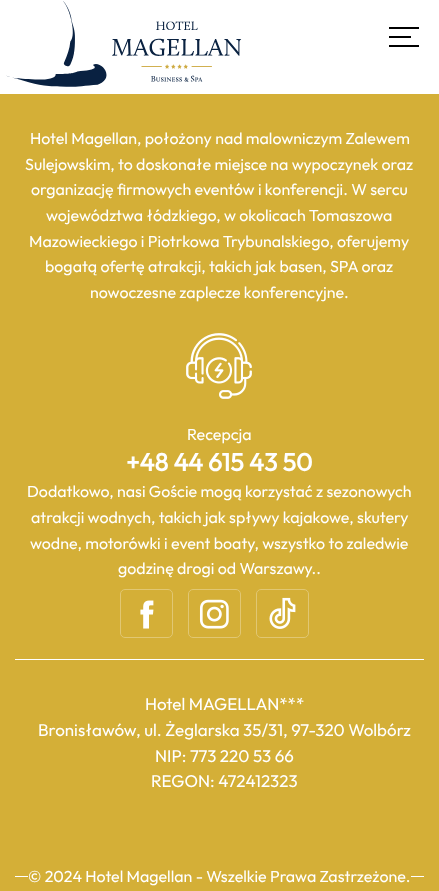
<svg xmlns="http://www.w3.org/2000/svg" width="439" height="891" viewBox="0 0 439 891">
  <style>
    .t1 { font: 100 16px Outfit; fill: #fff; }
    .t2 { font: bold 25px Outfit; fill: #fff; }
    .t3 { font: 100 17px Outfit; fill: #fff; }
  </style>
  <rect width="100%" height="100%" fill="#d4af37"/>
  <rect x="0" y="0" width="439" height="94" fill="#fff"/>
  <image x="6" y="1" width="236" height="86" href="images/1.png"/>
  <rect x="389" y="27" width="30" height="2" fill="#000"/>
  <rect x="389" y="36" width="22" height="2" fill="#000"/>
  <rect x="389" y="45" width="30" height="2" fill="#000"/>
  <text x="30" y="144" class="t1">Hotel Magellan, położony nad malowniczym Zalewem</text>
  <text x="25" y="170" class="t1">Sulejowskim, to doskonałe miejsce na wypoczynek oraz</text>
  <text x="31" y="195" class="t1">organizację firmowych eventów i konferencji. W sercu</text>
  <text x="46" y="221" class="t1">województwa łódzkiego, w okolicach Tomaszowa</text>
  <text x="29" y="247" class="t1">Mazowieckiego i Piotrkowa Trybunalskiego, oferujemy</text>
  <text x="45" y="272" class="t1">bogatą ofertę atrakcji, takich jak basen, SPA oraz</text>
  <text x="90" y="298" class="t1">nowoczesne zaplecze konferencyjne.</text>
  <image x="186" y="333" width="66" height="66" href="images/2.png"/>
  <text x="187" y="440" class="t1">Recepcja</text>
  <text x="126" y="471" class="t2">+48 44 615 43 50</text>
  <text x="27" y="497" class="t1">Dodatkowo, nasi Goście mogą korzystać z sezonowych</text>
  <text x="31" y="523" class="t1">atrakcji wodnych, takich jak spływy kajakowe, skutery</text>
  <text x="30" y="549" class="t1">wodne, motorówki i event boaty, wszystko to zaledwie</text>
  <text x="118" y="574" class="t1">godzinę drogi od Warszawy..</text>
  <rect x="120.5" y="589.5" width="52" height="48" rx="4.5" fill="none" stroke="#e1c773"/>
  <image x="140" y="600" width="14" height="29" href="images/3.png"/>
  <rect x="188.5" y="589.5" width="52" height="48" rx="4.5" fill="none" stroke="#e1c773"/>
  <image x="199" y="599" width="30" height="30" href="images/4.png"/>
  <rect x="256.5" y="589.5" width="52" height="48" rx="4.5" fill="none" stroke="#e1c773"/>
  <image x="269" y="597" width="27" height="32" href="images/5.png"/>
  <rect x="15" y="659" width="409" height="1" fill="#fff"/>
  <text x="145" y="710" class="t3">Hotel MAGELLAN***</text>
  <text x="38" y="736" class="t3">Bronisławów, ul. Żeglarska 35/31, 97-320 Wolbórz</text>
  <text x="155" y="762" class="t3">NIP: 773 220 53 66</text>
  <text x="151" y="787" class="t3">REGON: 472412323</text>
  <rect x="15" y="876" width="13" height="1" fill="#fff"/>
  <text x="28" y="882" class="t1">© 2024 Hotel Magellan - Wszelkie Prawa Zastrzeżone.</text>
  <rect x="411" y="876" width="13" height="1" fill="#fff"/>
</svg>
